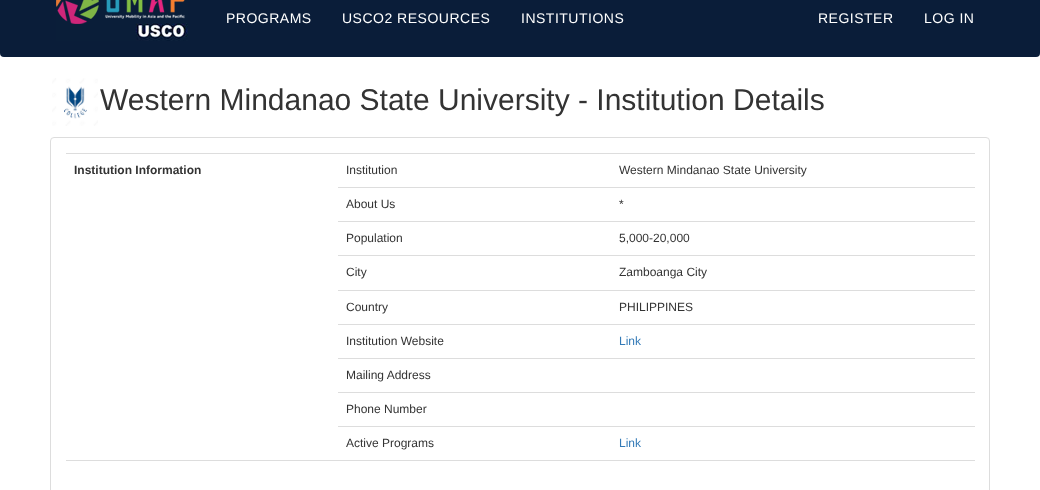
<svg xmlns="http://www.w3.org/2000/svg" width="1040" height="490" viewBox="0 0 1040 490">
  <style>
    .t1 { font: 14px Liberation Sans; letter-spacing: 0.5px; fill: #fff; }
    .t2 { font: 30px Liberation Sans; fill: #333; }
    .t3 { font: bold 12px Liberation Sans; fill: #333; }
    .t4 { font: 12px Liberation Sans; fill: #333; }
    .t5 { font: 12px Liberation Sans; fill: #337ab7; }
  </style>
  <rect width="100%" height="100%" fill="#fff"/>
  <rect x="0" y="-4" width="1040" height="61" rx="4" fill="#0a1d39"/>
  <image x="56" y="0" width="132" height="41" href="images/1.png"/>
  <text x="226" y="23" class="t1">PROGRAMS</text>
  <text x="342" y="23" class="t1">USCO2 RESOURCES</text>
  <text x="521" y="23" class="t1">INSTITUTIONS</text>
  <text x="818" y="23" class="t1">REGISTER</text>
  <text x="924" y="23" class="t1">LOG IN</text>
  <image x="52" y="78" width="46" height="48" href="images/2.png"/>
  <text x="100" y="110" class="t2">Western Mindanao State University - Institution Details</text>
  <rect x="50.5" y="137.5" width="939" height="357" rx="3.5" fill="none" stroke="#ddd"/>
  <text x="74" y="174" class="t3">Institution Information</text>
  <text x="346" y="174" class="t4">Institution</text>
  <rect x="66" y="153" width="909" height="1" fill="#ddd"/>
  <text x="619" y="174" class="t4">Western Mindanao State University</text>
  <text x="346" y="208" class="t4">About Us</text>
  <rect x="338" y="187" width="637" height="1" fill="#ddd"/>
  <text x="619" y="208" class="t4">*</text>
  <text x="346" y="242" class="t4">Population</text>
  <rect x="338" y="221" width="637" height="1" fill="#ddd"/>
  <text x="619" y="242" class="t4">5,000-20,000</text>
  <text x="346" y="276" class="t4">City</text>
  <rect x="338" y="255" width="637" height="1" fill="#ddd"/>
  <text x="619" y="276" class="t4">Zamboanga City</text>
  <text x="346" y="311" class="t4">Country</text>
  <rect x="338" y="290" width="637" height="1" fill="#ddd"/>
  <text x="619" y="311" class="t4">PHILIPPINES</text>
  <text x="346" y="345" class="t4">Institution Website</text>
  <rect x="338" y="324" width="637" height="1" fill="#ddd"/>
  <text x="619" y="345" class="t5">Link</text>
  <rect x="338" y="358" width="637" height="1" fill="#ddd"/>
  <text x="346" y="379" class="t4">Mailing Address</text>
  <rect x="338" y="392" width="637" height="1" fill="#ddd"/>
  <text x="346" y="413" class="t4">Phone Number</text>
  <text x="346" y="447" class="t4">Active Programs</text>
  <rect x="338" y="426" width="637" height="1" fill="#ddd"/>
  <text x="619" y="447" class="t5">Link</text>
  <rect x="66" y="460" width="909" height="1" fill="#ddd"/>
</svg>
